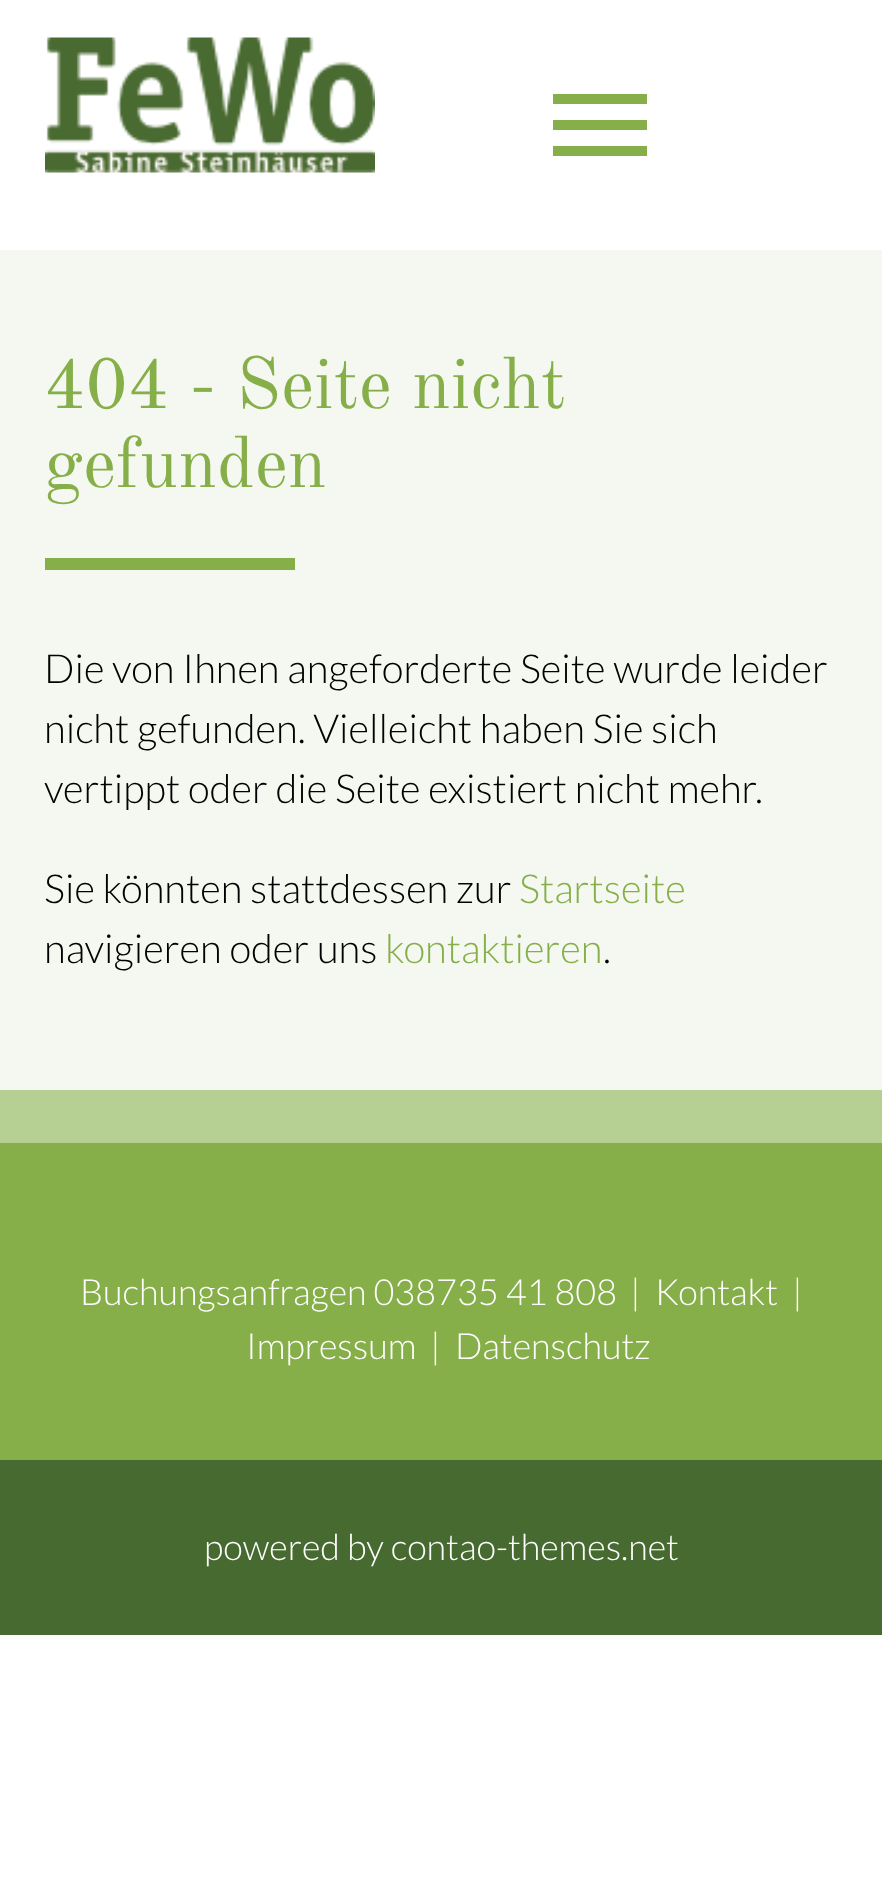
<svg xmlns="http://www.w3.org/2000/svg" width="882" height="1903" viewBox="0 0 882 1903">
  <style>
    .t1 { font: 72px Old Standard TT; fill: #86af49; }
    .t2 { font: 300 40px Lato; fill: #000; }
    .t3 { font: 300 40px Lato; fill: #86af49; }
    .t4 { font: 300 36px Lato; fill: #fff; }
  </style>
  <rect width="100%" height="100%" fill="#fff"/>
  <rect x="0" y="250" width="882" height="840" fill="#f4f8f0"/>
  <image x="45" y="37" width="330" height="136" href="images/1.png"/>
  <path d="M553 94H647V104H553ZM553 130V120H647V130ZM553 156V146H647V156Z" fill="#86af49"/>
  <text x="44" y="408" class="t1">404 - Seite nicht</text>
  <text x="44" y="487" class="t1">gefunden</text>
  <rect x="45" y="558" width="250" height="12" fill="#86af49"/>
  <text x="44" y="683" class="t2">Die von Ihnen angeforderte Seite wurde leider</text>
  <text x="44" y="743" class="t2">nicht gefunden. Vielleicht haben Sie sich</text>
  <text x="44" y="803" class="t2">vertippt oder die Seite existiert nicht mehr.</text>
  <text x="44" y="903" class="t2">Sie könnten stattdessen zur</text>
  <text x="519" y="903" class="t3">Startseite</text>
  <text x="44" y="963" class="t2">navigieren oder uns</text>
  <text x="385" y="963" class="t3">kontaktieren</text>
  <text x="603" y="963" class="t2">.</text>
  <rect x="0" y="1143" width="882" height="317" fill="#86af49"/>
  <rect x="0" y="1090" width="882" height="53" fill="#b6cf92"/>
  <text x="80" y="1305" class="t4">Buchungsanfragen 038735 41 808</text>
  <text x="630" y="1305" class="t4">|</text>
  <text x="655" y="1305" class="t4">Kontakt</text>
  <text x="792" y="1305" class="t4">|</text>
  <text x="246" y="1359" class="t4">Impressum</text>
  <text x="430" y="1359" class="t4">|</text>
  <text x="455" y="1359" class="t4">Datenschutz</text>
  <rect x="0" y="1460" width="882" height="175" fill="#476a30"/>
  <text x="204" y="1560" class="t4">powered by contao-themes.net</text>
</svg>
